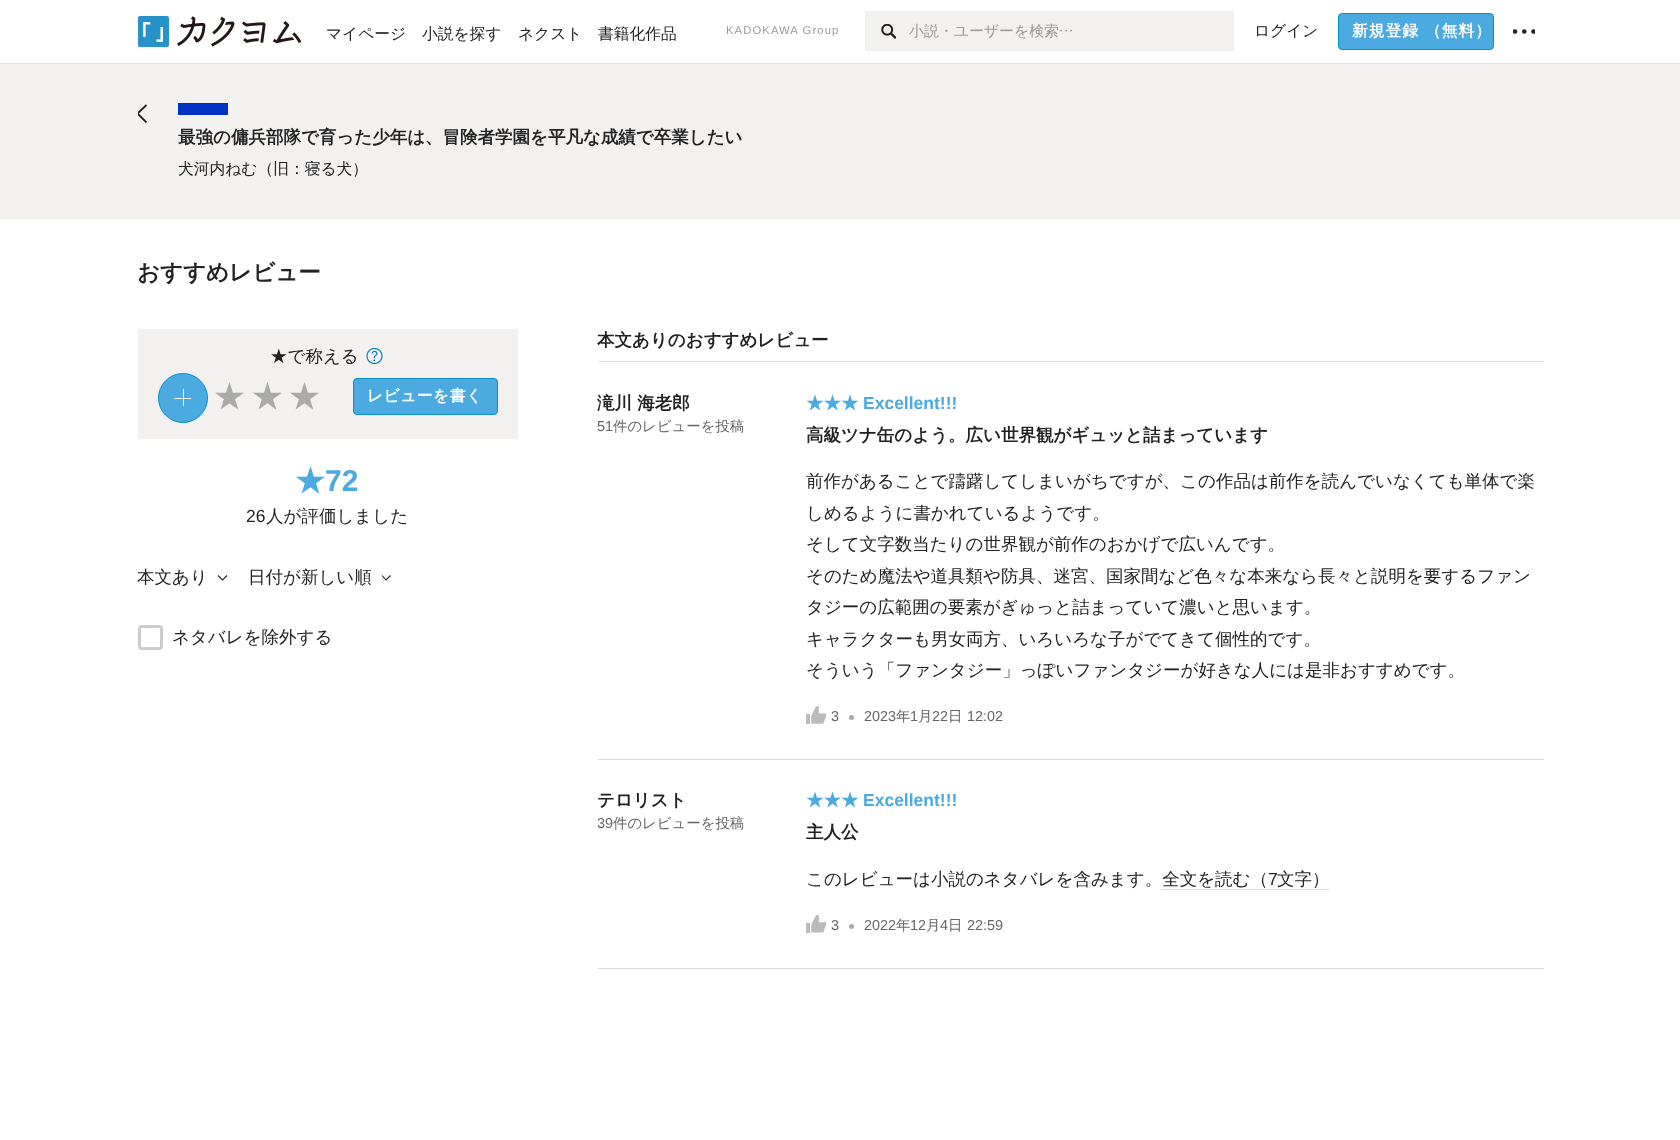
<svg xmlns="http://www.w3.org/2000/svg" width="1680" height="1140" viewBox="0 0 1680 1140">
  <style>
    .t1 { font: 500 15.75px WenQuanYi Zen Hei; fill: #222; }
    .t2 { font: 11.25px Liberation Sans; letter-spacing: 1.1px; fill: #999; }
    .t3 { font: 500 14.9px WenQuanYi Zen Hei; fill: #999; }
    .t4 { font: bold 15.75px WenQuanYi Zen Hei; letter-spacing: 1px; fill: #fff; }
    .t5 { font: bold 17.5px WenQuanYi Zen Hei; fill: #222; }
    .t6 { font: bold 22.5px WenQuanYi Zen Hei; fill: #222; }
    .t7 { font: 500 17.5px WenQuanYi Zen Hei; fill: #222; }
    .t8 { font: bold 30px WenQuanYi Zen Hei; fill: #aaa; }
    .t9 { font: bold 15.75px WenQuanYi Zen Hei; letter-spacing: 0.5px; fill: #fff; }
    .t10 { font: bold 30px WenQuanYi Zen Hei; fill: #4baae0; }
    .t11 { font: bold 30px Liberation Sans; fill: #4baae0; }
    .t12 { font: 17.5px Liberation Sans; fill: #222; }
    .t13 { font: 14.4px Liberation Sans; fill: #666; }
    .t14 { font: 500 14.4px WenQuanYi Zen Hei; fill: #666; }
    .t15 { font: bold 17.5px WenQuanYi Zen Hei; fill: #4baae0; }
    .t16 { font: bold 17.5px Liberation Sans; fill: #4baae0; }
  </style>
  <defs>
    <clipPath id="clip1"><rect x="1513" y="20" width="22" height="23"/></clipPath>
    <clipPath id="clip2"><rect x="138" y="103" width="10" height="22"/></clipPath>
  </defs>
  <rect width="100%" height="100%" fill="#fff"/>
  <image x="138" y="16" width="164" height="31" href="images/1.png"/>
  <text x="326" y="39" class="t1">マイページ</text>
  <text x="422" y="39" class="t1">小説を探す</text>
  <text x="518" y="39" class="t1">ネクスト</text>
  <text x="598" y="39" class="t1">書籍化作品</text>
  <text x="726" y="34" class="t2">KADOKAWA Group</text>
  <rect x="865" y="11" width="369" height="40" fill="#f2f1f0"/>
  <image x="881" y="24" width="15" height="15" href="images/2.png"/>
  <text x="909" y="36" class="t3">小説・ユーザーを検索</text>
  <image x="1060" y="29" width="12" height="3" href="images/3.png"/>
  <text x="1254" y="36" class="t1">ログイン</text>
  <rect x="1338.5" y="13.5" width="155" height="36" rx="3.5" fill="#4baae0" stroke="#0990cc"/>
  <text x="1352" y="36" class="t4">新規登録</text>
  <text x="1425" y="36" class="t4">（無料）</text>
  <g clip-path="url(#clip1)">
    <circle cx="1515" cy="31.5" r="2.3" fill="#222"/>
  </g>
  <circle cx="1524.3" cy="31.5" r="2.3" fill="#222"/>
  <g clip-path="url(#clip1)">
    <circle cx="1533.5" cy="31.5" r="2.3" fill="#222"/>
  </g>
  <rect x="0" y="64" width="1680" height="155" fill="#f2f1f0"/>
  <rect x="0" y="63" width="1680" height="1" fill="#e6e5e4"/>
  <g clip-path="url(#clip2)">
    <path d="M146.5 122.5L137.5 113.5L146.5 105" fill="none" stroke="#222" stroke-width="1.8"/>
  </g>
  <rect x="178" y="103" width="50" height="12" fill="#0033c4"/>
  <text x="178" y="143" class="t5">最強の傭兵部隊で育った少年は、冒険者学園を平凡な成績で卒業したい</text>
  <text x="178" y="174" class="t1">犬河内ねむ（旧：寝る犬）</text>
  <text x="137" y="280" class="t6">おすすめレビュー</text>
  <rect x="138" y="329" width="380" height="110" fill="#f2f1f0"/>
  <text x="270" y="362" class="t7">★で称える</text>
  <image x="366" y="348" width="17" height="17" href="images/4.png"/>
  <circle cx="183" cy="398" r="24.5" fill="#4baae0" stroke="#0990cc"/>
  <rect x="174" y="398" width="17" height="1" fill="#fff"/>
  <rect x="183" y="389" width="1" height="17" fill="#fff"/>
  <text x="214" y="407" class="t8">★</text>
  <text x="252" y="407" class="t8">★</text>
  <text x="289" y="407" class="t8">★</text>
  <rect x="353.5" y="378.5" width="144" height="36" rx="3.5" fill="#4baae0" stroke="#0990cc"/>
  <text x="367" y="401" class="t9">レビューを書く</text>
  <text x="295" y="491" class="t10">★</text>
  <text x="325" y="491" class="t11">72</text>
  <text x="246" y="522" class="t12">26</text>
  <text x="266" y="522" class="t7">人が評価しました</text>
  <text x="137" y="583" class="t7">本文あり</text>
  <path d="M227 575.5L222.5 580L218 575.5" fill="none" stroke="#222" stroke-width="1.1"/>
  <text x="248" y="583" class="t7">日付が新しい順</text>
  <path d="M390.5 575.5L386 580L382 575.5" fill="none" stroke="#222" stroke-width="1.1"/>
  <rect x="139.5" y="626.5" width="22" height="22" rx="2.5" fill="none" stroke="#ccc" stroke-width="3"/>
  <text x="172" y="643" class="t7">ネタバレを除外する</text>
  <rect x="598" y="361" width="946" height="1" fill="#ddd"/>
  <text x="597" y="346" class="t5">本文ありのおすすめレビュー</text>
  <rect x="598" y="759" width="946" height="1" fill="#ddd"/>
  <text x="597" y="409" class="t5">滝川 海老郎</text>
  <text x="597" y="431" class="t13">51</text>
  <text x="613" y="431" class="t14">件のレビューを投稿</text>
  <text x="806" y="409" class="t15">★★★</text>
  <text x="863" y="409" class="t16">Excellent!!!</text>
  <text x="806" y="441" class="t5">高級ツナ缶のよう。広い世界観がギュッと詰まっています</text>
  <text x="806" y="487" class="t7">前作があることで躊躇してしまいがちですが、この作品は前作を読んでいなくても単体で楽</text>
  <text x="806" y="519" class="t7">しめるように書かれているようです。</text>
  <text x="806" y="550" class="t7">そして文字数当たりの世界観が前作のおかげで広いんです。</text>
  <text x="806" y="582" class="t7">そのため魔法や道具類や防具、迷宮、国家間など色々な本来なら長々と説明を要するファン</text>
  <text x="806" y="613" class="t7">タジーの広範囲の要素がぎゅっと詰まっていて濃いと思います。</text>
  <text x="806" y="645" class="t7">キャラクターも男女両方、いろいろな子がでてきて個性的です。</text>
  <text x="806" y="676" class="t7">そういう「ファンタジー」っぽいファンタジーが好きな人には是非おすすめです。</text>
  <image x="806" y="706" width="20" height="18" href="images/5.png"/>
  <text x="831" y="721" class="t13">3</text>
  <circle cx="851.5" cy="717.5" r="2.5" fill="#aaa"/>
  <text x="864" y="721" class="t13">2023</text>
  <text x="896" y="721" class="t14">年</text>
  <text x="910" y="721" class="t13">1</text>
  <text x="918" y="721" class="t14">月</text>
  <text x="932" y="721" class="t13">22</text>
  <text x="948" y="721" class="t14">日</text>
  <text x="967" y="721" class="t13">12:02</text>
  <rect x="598" y="968" width="946" height="1" fill="#ddd"/>
  <text x="597" y="806" class="t5">テロリスト</text>
  <text x="597" y="828" class="t13">39</text>
  <text x="613" y="828" class="t14">件のレビューを投稿</text>
  <text x="806" y="806" class="t15">★★★</text>
  <text x="863" y="806" class="t16">Excellent!!!</text>
  <text x="806" y="838" class="t5">主人公</text>
  <text x="806" y="885" class="t7">このレビューは小説のネタバレを含みます。全文を読む（</text>
  <rect x="1161" y="889" width="169" height="1" fill="#ddd"/>
  <text x="1268" y="885" class="t12">7</text>
  <text x="1277" y="885" class="t7">文字）</text>
  <image x="806" y="915" width="20" height="18" href="images/6.png"/>
  <text x="831" y="930" class="t13">3</text>
  <circle cx="851.5" cy="926.5" r="2.5" fill="#aaa"/>
  <text x="864" y="930" class="t13">2022</text>
  <text x="896" y="930" class="t14">年</text>
  <text x="910" y="930" class="t13">12</text>
  <text x="926" y="930" class="t14">月</text>
  <text x="940" y="930" class="t13">4</text>
  <text x="948" y="930" class="t14">日</text>
  <text x="967" y="930" class="t13">22:59</text>
</svg>
